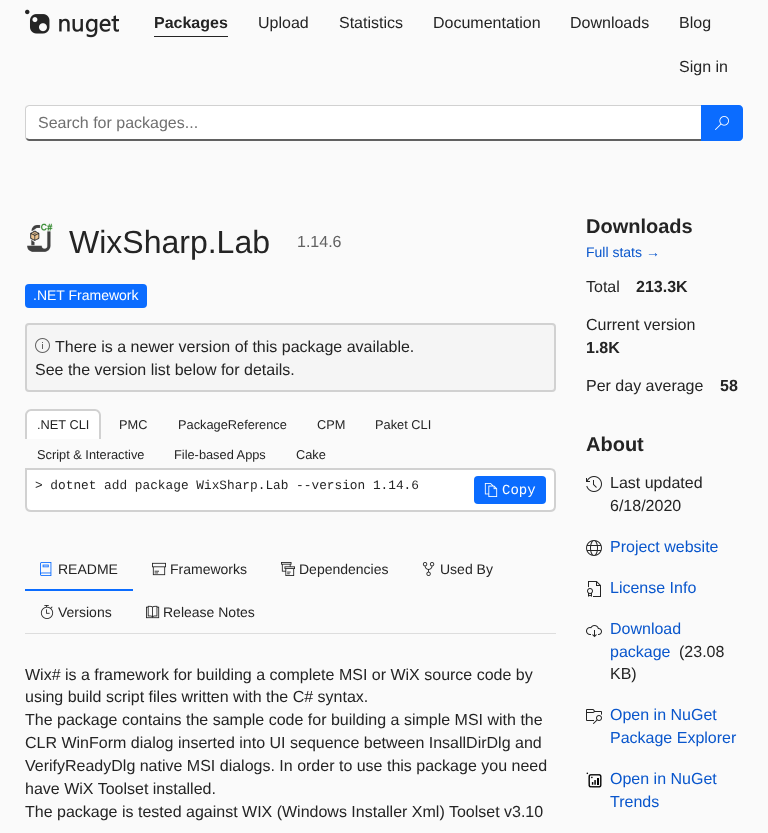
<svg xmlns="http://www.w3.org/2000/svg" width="768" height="833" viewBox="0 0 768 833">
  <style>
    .t1 { font: bold 16px Liberation Sans; fill: #242424; }
    .t2 { font: 16px Liberation Sans; fill: #242424; }
    .t3 { font: 16px Liberation Sans; fill: #707070; }
    .t4 { font: 32px Liberation Sans; fill: #242424; }
    .t5 { font: 16px Liberation Sans; fill: #616161; }
    .t6 { font: 14px Liberation Sans; fill: #fff; }
    .t7 { font: 12.8px Liberation Sans; fill: #242424; }
    .t8 { font: 12.8px Liberation Mono; fill: #242424; }
    .t9 { font: 14px Liberation Mono; fill: #fff; }
    .t10 { font: 14px Liberation Sans; fill: #242424; }
    .t11 { font: bold 20px Liberation Sans; fill: #242424; }
    .t12 { font: 14px Liberation Sans; fill: #0956cc; }
    .t13 { font: 16px Liberation Sans; fill: #0956cc; }
  </style>
  <rect width="100%" height="100%" fill="#fafafa"/>
  <image x="25" y="9" width="94" height="29" href="images/1.png"/>
  <text x="154" y="28" class="t1">Packages</text>
  <rect x="154" y="36" width="74" height="1" fill="#242424"/>
  <text x="258" y="28" class="t2">Upload</text>
  <text x="339" y="28" class="t2">Statistics</text>
  <text x="433" y="28" class="t2">Documentation</text>
  <text x="570" y="28" class="t2">Downloads</text>
  <text x="679" y="28" class="t2">Blog</text>
  <text x="679" y="72" class="t2">Sign in</text>
  <path d="M29 106H701V139H29C27 139 26 138 26 137V109C26 107 27 106 29 106Z" fill="#fff"/>
  <path d="M29 105L26 106L27 107L29 106H701L702 105Z" fill="#d1d1d1"/>
  <path d="M702 141L701 139H29L26 138V139C27 140 28 141 29 141Z" fill="#616161"/>
  <path d="M25 109V137C25 138 25.5 138.5 26 139.5L26.5 138L26 137V108.5L27 107L26 106C25.5 107 25 108 25 109Z" fill="#d1d1d1"/>
  <text x="38" y="128" class="t3">Search for packages...</text>
  <path d="M701 105H739C741 105 743 107 743 109V137C743 139 741 141 739 141H701Z" fill="#0b6cff"/>
  <image x="715" y="116" width="14" height="14" href="images/2.png"/>
  <image x="27" y="223" width="26" height="29" href="images/3.png"/>
  <text x="69" y="253" class="t4">WixSharp.Lab</text>
  <text x="297" y="247" class="t5">1.14.6</text>
  <rect x="25" y="284" width="122" height="24" rx="4" fill="#0b6cff"/>
  <text x="33" y="300" class="t6">.NET Framework</text>
  <rect x="26" y="324" width="529" height="67" rx="3" fill="#f5f5f5" stroke="#d1d1d1" stroke-width="2"/>
  <image x="35" y="338" width="15" height="15" href="images/4.png"/>
  <text x="55" y="352" class="t2">There is a newer version of this package available.</text>
  <text x="35" y="375" class="t2">See the version list below for details.</text>
  <path d="M31 409H95C98.5 409 101 411.5 101 415V439H25V415C25 411.5 27.5 409 31 409Z" fill="#fff"/>
  <path d="M31 409H95C98 409 101 412 101 415V439H25V415C25 412 28 409 31 409ZM31 411H95C97 411 99 413 99 415V439H27V415C27 413 29 411 31 411Z" fill="#d1d1d1" fill-rule="evenodd"/>
  <text x="37" y="429" class="t7">.NET CLI</text>
  <text x="119" y="429" class="t7">PMC</text>
  <text x="178" y="429" class="t7">PackageReference</text>
  <text x="317" y="429" class="t7">CPM</text>
  <text x="375" y="429" class="t7">Paket CLI</text>
  <text x="37" y="459" class="t7">Script &amp; Interactive</text>
  <text x="174" y="459" class="t7">File-based Apps</text>
  <text x="296" y="459" class="t7">Cake</text>
  <path d="M26 469H550C553 469 555 471 555 474V506C555 509 553 511 550 511H31C28 511 26 509 26 506Z" fill="#fff" stroke="#d1d1d1" stroke-width="2"/>
  <text x="35" y="489" class="t8">&gt; dotnet add package WixSharp.Lab --version 1.14.6</text>
  <rect x="474" y="476" width="72" height="28" rx="4" fill="#0b6cff"/>
  <image x="484" y="483" width="14" height="14" href="images/5.png"/>
  <text x="502" y="494" class="t9">Copy</text>
  <rect x="25" y="633" width="531" height="1" fill="#ddd"/>
  <rect x="25" y="589" width="108" height="2" fill="#0b6cff"/>
  <image x="40" y="562" width="12" height="14" href="images/6.png"/>
  <text x="58" y="574" class="t10">README</text>
  <image x="152" y="562" width="14" height="14" href="images/7.png"/>
  <text x="170" y="574" class="t10">Frameworks</text>
  <image x="281" y="562" width="14" height="14" href="images/8.png"/>
  <text x="299" y="574" class="t10">Dependencies</text>
  <image x="422" y="562" width="13" height="14" href="images/9.png"/>
  <text x="440" y="574" class="t10">Used By</text>
  <image x="40" y="605" width="14" height="14" href="images/10.png"/>
  <text x="58" y="617" class="t10">Versions</text>
  <image x="146" y="605" width="14" height="14" href="images/11.png"/>
  <text x="163" y="617" class="t10">Release Notes</text>
  <text x="25" y="680" class="t2">Wix# is a framework for building a complete MSI or WiX source code by</text>
  <text x="25" y="702" class="t2">using build script files written with the C# syntax.</text>
  <text x="25" y="725" class="t2">The package contains the sample code for building a simple MSI with the</text>
  <text x="25" y="748" class="t2">CLR WinForm dialog inserted into UI sequence between InsallDirDlg and</text>
  <text x="25" y="771" class="t2">VerifyReadyDlg native MSI dialogs. In order to use this package you need</text>
  <text x="25" y="794" class="t2">have WiX Toolset installed.</text>
  <text x="25" y="817" class="t2">The package is tested against WIX (Windows Installer Xml) Toolset v3.10</text>
  <text x="586" y="233" class="t11">Downloads</text>
  <text x="586" y="257" class="t12">Full stats →</text>
  <text x="586" y="292" class="t2">Total</text>
  <text x="636" y="292" class="t1">213.3K</text>
  <text x="586" y="330" class="t2">Current version</text>
  <text x="586" y="353" class="t1">1.8K</text>
  <text x="586" y="391" class="t2">Per day average</text>
  <text x="720" y="391" class="t1">58</text>
  <text x="586" y="451" class="t11">About</text>
  <image x="586" y="476" width="16" height="16" href="images/12.png"/>
  <text x="610" y="488" class="t2">Last updated</text>
  <text x="610" y="511" class="t2">6/18/2020</text>
  <image x="586" y="540" width="16" height="16" href="images/13.png"/>
  <text x="610" y="552" class="t13">Project website</text>
  <image x="587" y="581" width="14" height="16" href="images/14.png"/>
  <text x="610" y="593" class="t13">License Info</text>
  <image x="586" y="625" width="16" height="13" href="images/15.png"/>
  <text x="610" y="634" class="t13">Download</text>
  <text x="610" y="657" class="t13">package</text>
  <text x="679" y="657" class="t2">(23.08</text>
  <text x="610" y="679" class="t2">KB)</text>
  <image x="586" y="709" width="16" height="15" href="images/16.png"/>
  <text x="610" y="720" class="t13">Open in NuGet</text>
  <text x="610" y="743" class="t13">Package Explorer</text>
  <image x="586" y="772" width="16" height="16" href="images/17.png"/>
  <text x="610" y="784" class="t13">Open in NuGet</text>
  <text x="610" y="807" class="t13">Trends</text>
</svg>
